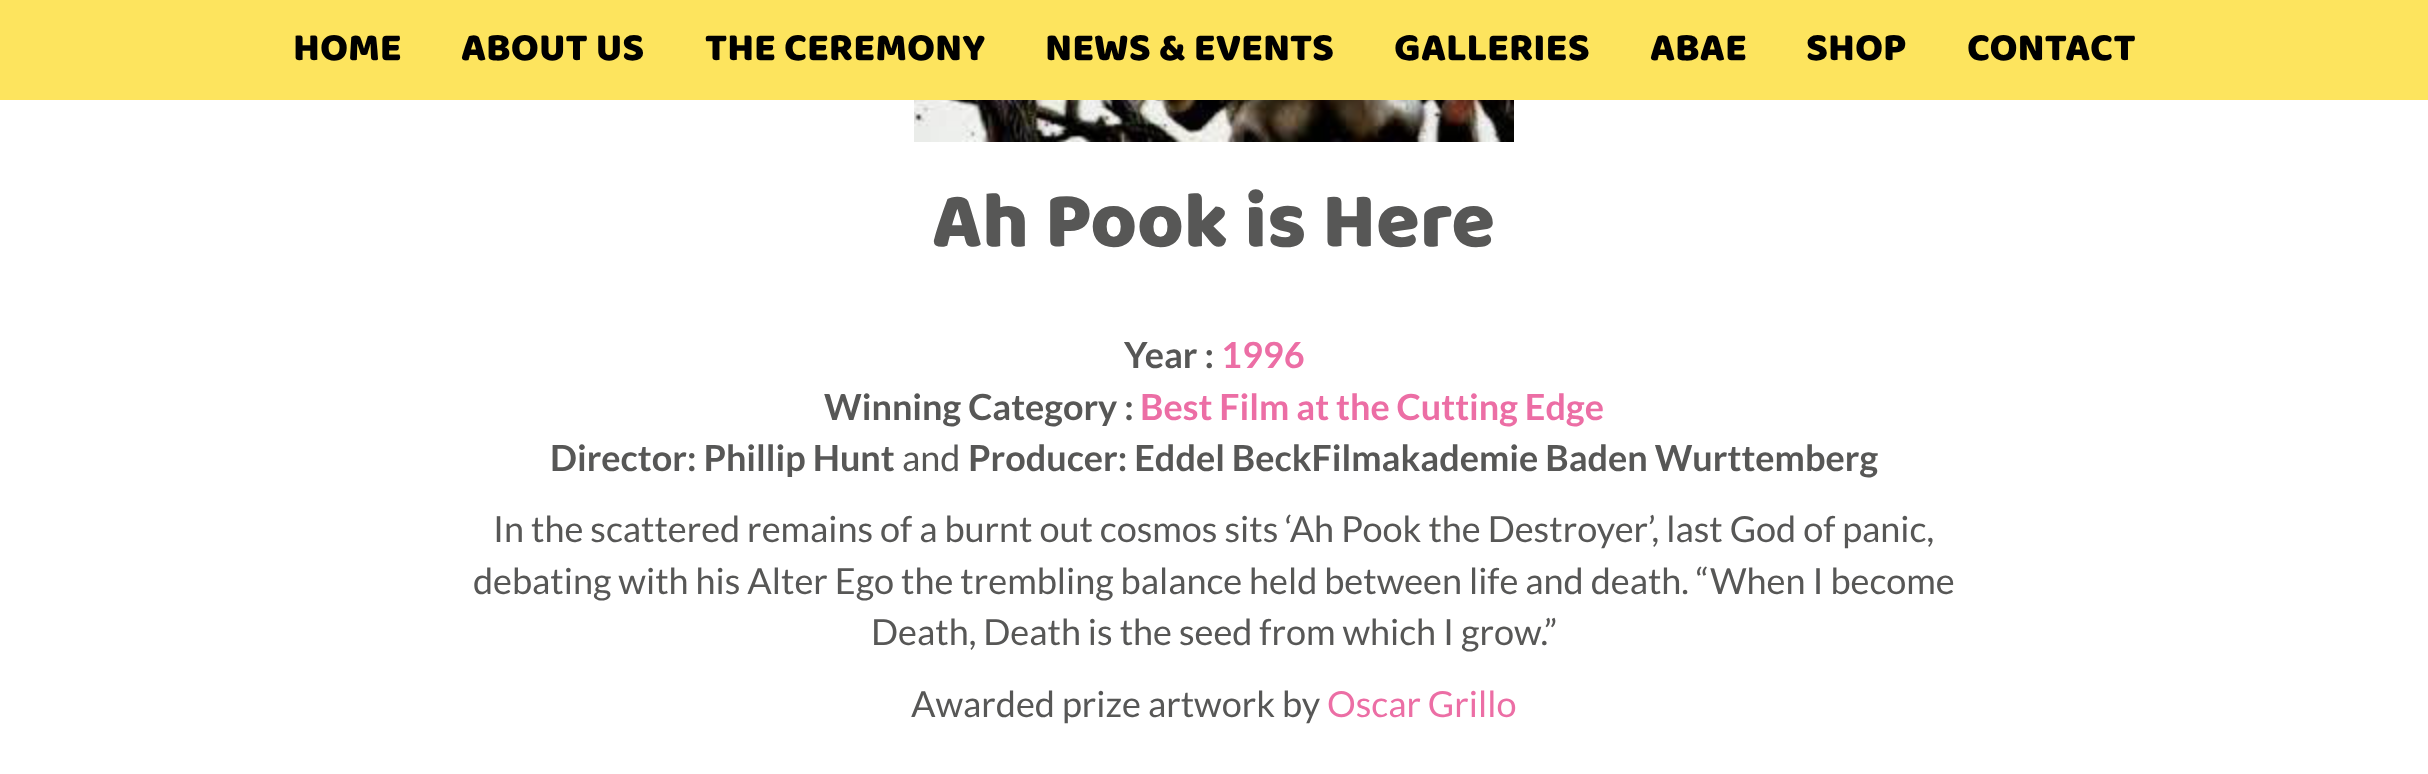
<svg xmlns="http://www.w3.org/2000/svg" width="2428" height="774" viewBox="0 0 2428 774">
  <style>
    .t1 { font: 40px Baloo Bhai; fill: #000; }
    .t2 { font: 80px Baloo Bhai; fill: #575756; }
    .t3 { font: bold 36px Lato; fill: #575756; }
    .t4 { font: bold 36px Lato; fill: #ec6ea5; }
    .t5 { font: 36px Lato; fill: #575756; }
    .t6 { font: 36px Lato; fill: #ec6ea5; }
  </style>
  <rect width="100%" height="100%" fill="#fff"/>
  <rect x="0" y="0" width="2428" height="100" fill="#fde45e"/>
  <text x="293" y="60" class="t1">HOME</text>
  <text x="461" y="60" class="t1">ABOUT US</text>
  <text x="705" y="60" class="t1">THE CEREMONY</text>
  <text x="1045" y="60" class="t1">NEWS &amp; EVENTS</text>
  <text x="1394" y="60" class="t1">GALLERIES</text>
  <text x="1650" y="60" class="t1">ABAE</text>
  <text x="1806" y="60" class="t1">SHOP</text>
  <text x="1967" y="60" class="t1">CONTACT</text>
  <image x="914" y="100" width="600" height="42" href="images/1.png"/>
  <text x="932" y="246" class="t2">Ah Pook is Here</text>
  <text x="1124" y="368" class="t3">Year :</text>
  <text x="1221" y="368" class="t4">1996</text>
  <text x="824" y="420" class="t3">Winning Category :</text>
  <text x="1140" y="420" class="t4">Best Film at the Cutting Edge</text>
  <text x="550" y="471" class="t3">Director: Phillip Hunt</text>
  <text x="902" y="471" class="t5">and</text>
  <text x="968" y="471" class="t3">Producer: Eddel BeckFilmakademie Baden Wurttemberg</text>
  <text x="493" y="542" class="t5">In the scattered remains of a burnt out cosmos sits ‘Ah Pook the Destroyer’, last God of panic,</text>
  <text x="473" y="594" class="t5">debating with his Alter Ego the trembling balance held between life and death. “When I become</text>
  <text x="871" y="645" class="t5">Death, Death is the seed from which I grow.”</text>
  <text x="911" y="717" class="t5">Awarded prize artwork by</text>
  <text x="1327" y="717" class="t6">Oscar Grillo</text>
</svg>
